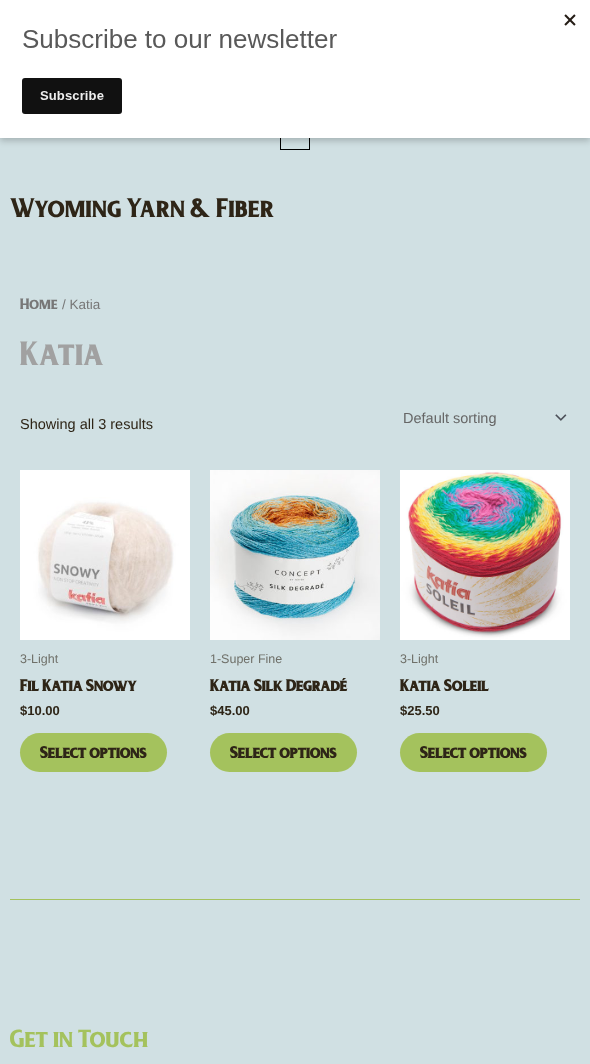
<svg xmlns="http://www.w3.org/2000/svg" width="590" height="1064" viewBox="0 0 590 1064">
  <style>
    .t1 { font: 23.75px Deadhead; fill: #2e2517; }
    .t2 { font: 13.5px Deadhead; fill: #777; }
    .t3 { font: 13.5px Liberation Sans; fill: #777; }
    .t4 { font: 30px Deadhead; fill: #a1a1a1; }
    .t5 { font: 14.5px Liberation Sans; fill: #2e2517; }
    .t6 { font: 14.5px Liberation Sans; fill: #666; }
    .t7 { font: 12.5px Liberation Sans; fill: #6f7069; }
    .t8 { font: bold 14.5px Deadhead; fill: #2e2517; }
    .t9 { font: bold 13px Liberation Sans; fill: #2e2517; }
    .t10 { font: 22px Deadhead; fill: #a4c25d; }
  </style>
  <rect width="100%" height="100%" fill="#d0e0e3"/>
  <rect x="280.5" y="115.5" width="29" height="34" fill="none" stroke="#000"/>
  <rect x="0" y="3" width="590" height="138" fill="#00000033" filter="blur(3px)"/>
  <rect x="0" y="0" width="590" height="138" fill="#fff"/>
  <image x="22" y="14" width="554" height="100" href="images/1.png"/>
  <text x="10" y="217" class="t1">Wyoming Yarn &amp; Fiber</text>
  <text x="20" y="309" class="t2">Home</text>
  <text x="62" y="309" class="t3">/ Katia</text>
  <text x="20" y="365" class="t4">Katia</text>
  <text x="20" y="429" class="t5">Showing all 3 results</text>
  <image x="555" y="414" width="12" height="7" href="images/2.png"/>
  <text x="403" y="423" class="t6">Default sorting</text>
  <image x="20" y="470" width="170" height="170" href="images/3.png"/>
  <text x="20" y="663" class="t7">3-Light</text>
  <text x="20" y="691" class="t8">Fil Katia Snowy</text>
  <text x="20" y="715" class="t9">$10.00</text>
  <rect x="20" y="733" width="147" height="39" rx="19.5" fill="#a4c25d"/>
  <text x="40" y="758" class="t8">Select options</text>
  <image x="210" y="470" width="170" height="170" href="images/4.png"/>
  <text x="210" y="663" class="t7">1-Super Fine</text>
  <text x="210" y="691" class="t8">Katia Silk Degradé</text>
  <text x="210" y="715" class="t9">$45.00</text>
  <rect x="210" y="733" width="147" height="39" rx="19.5" fill="#a4c25d"/>
  <text x="230" y="758" class="t8">Select options</text>
  <image x="400" y="470" width="170" height="170" href="images/5.png"/>
  <text x="400" y="663" class="t7">3-Light</text>
  <text x="400" y="691" class="t8">Katia Soleil</text>
  <text x="400" y="715" class="t9">$25.50</text>
  <rect x="400" y="733" width="147" height="39" rx="19.5" fill="#a4c25d"/>
  <text x="420" y="758" class="t8">Select options</text>
  <rect x="10" y="899" width="570" height="1" fill="#a4c25d"/>
  <text x="10" y="1047" class="t10">Get in Touch</text>
</svg>
